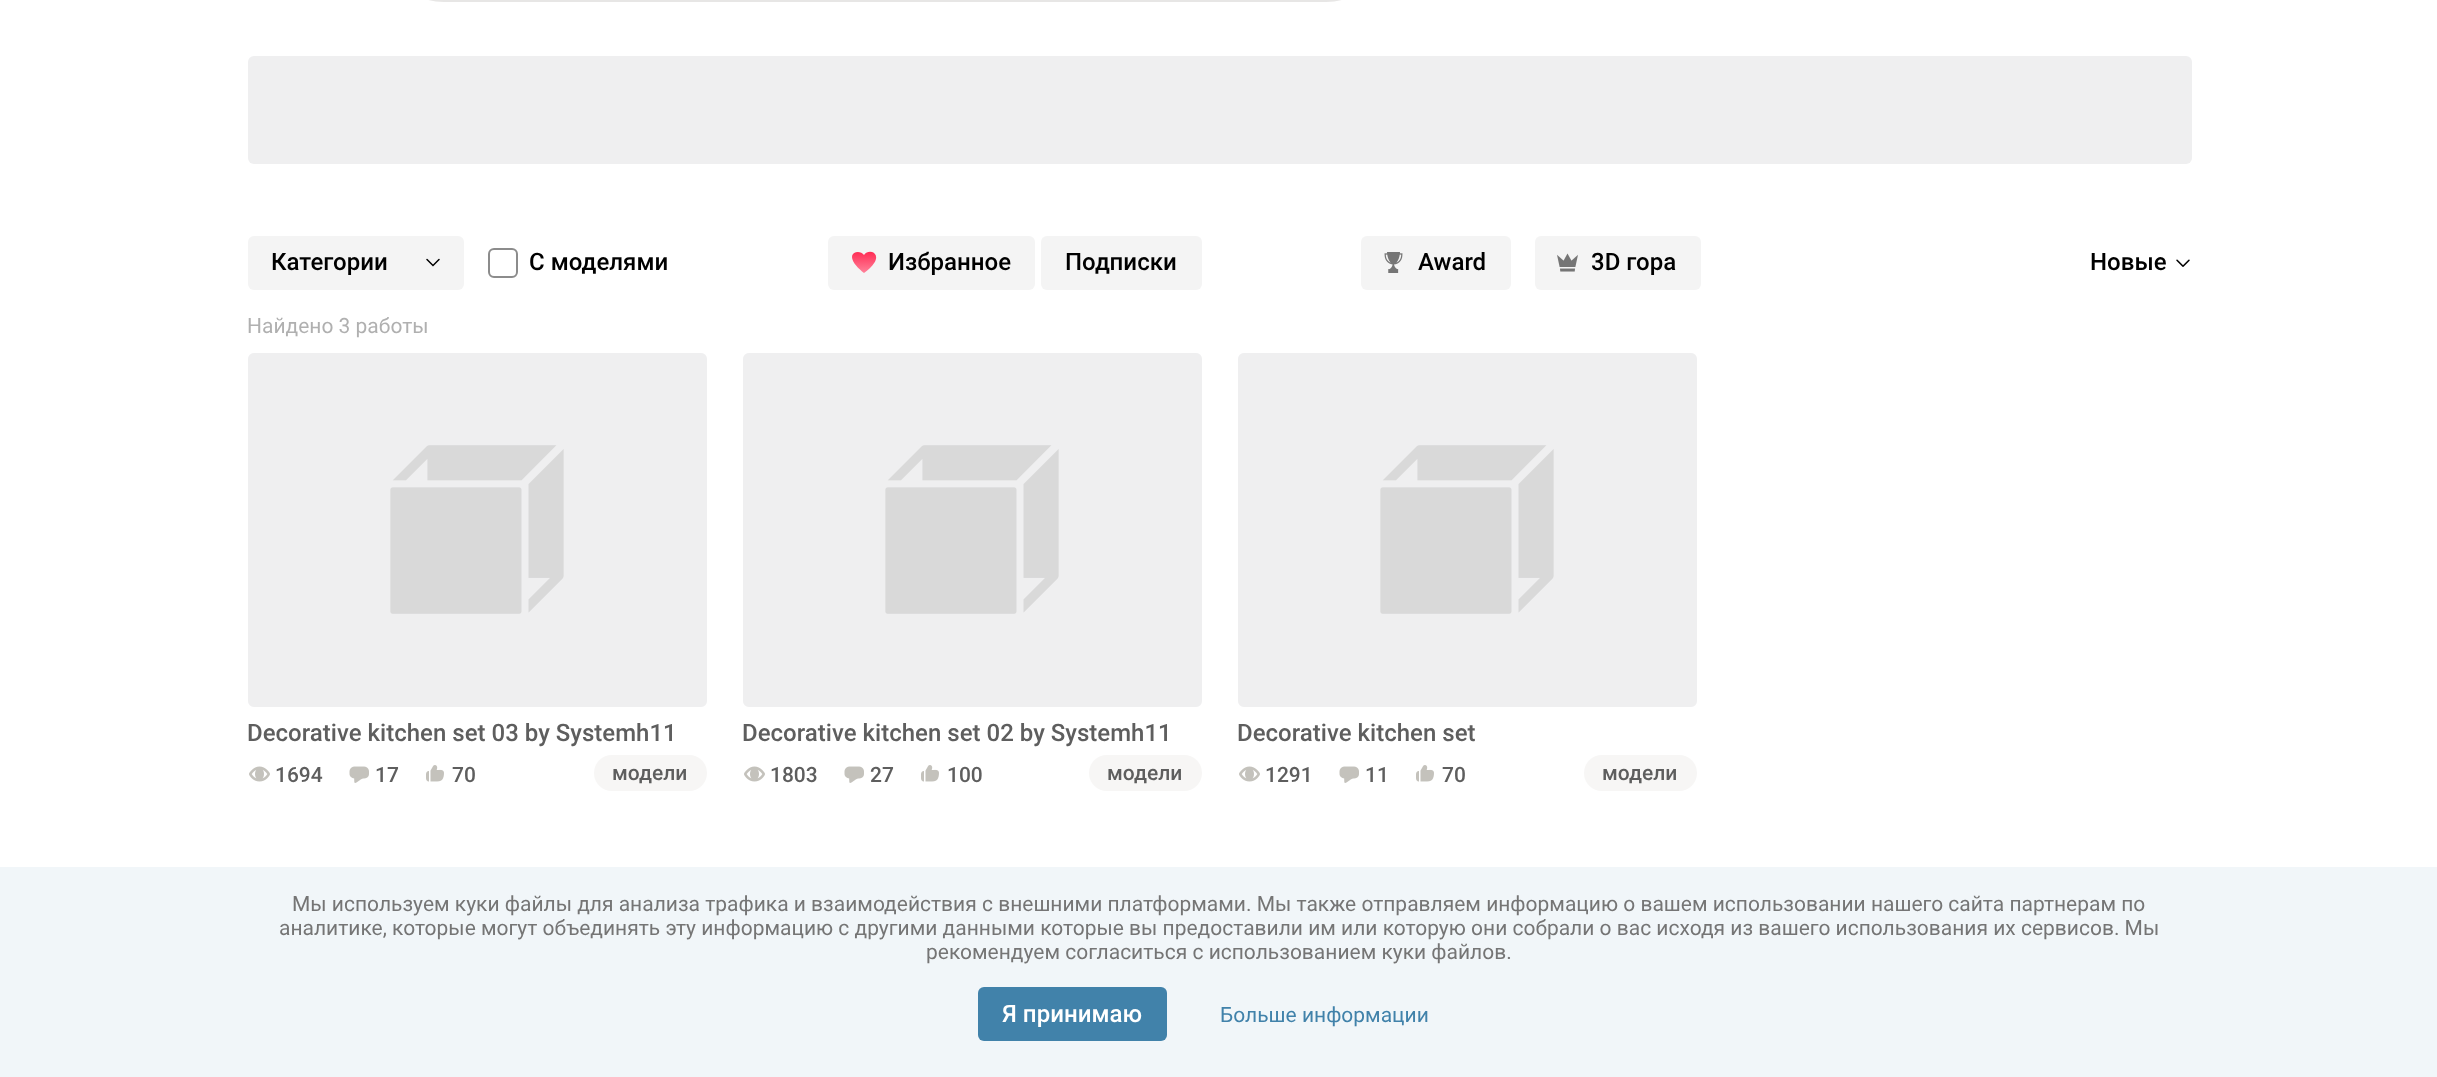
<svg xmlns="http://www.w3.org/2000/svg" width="2437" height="1077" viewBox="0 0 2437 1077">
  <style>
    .t1 { font: 500 24px Roboto; fill: #000; }
    .t2 { font: 21px Roboto; fill: #b0b0b0; }
    .t3 { font: 500 24px Roboto; fill: #5e5e5e; }
    .t4 { font: 500 21px Roboto; fill: #5e5e5e; }
    .t5 { font: 21px Roboto; fill: #757575; }
    .t6 { font: 500 24px Roboto; fill: #fff; }
    .t7 { font: 21px Roboto; fill: #4182aa; }
  </style>
  <defs>
    <linearGradient id="g1" gradientUnits="userSpaceOnUse" x1="864" y1="252" x2="864" y2="273"><stop offset="0" stop-color="#ff2d55"/><stop offset="1" stop-color="#ff829a"/></linearGradient>
  </defs>
  <rect width="100%" height="100%" fill="#fff"/>
  <rect x="409.5" y="-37.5" width="951" height="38" rx="34.5" fill="none" stroke="#e7e6e5" stroke-width="3"/>
  <rect x="248" y="56" width="1944" height="108" rx="6" fill="#efeff0"/>
  <rect x="248" y="236" width="216" height="54" rx="6" fill="#f4f4f4"/>
  <text x="271" y="270" class="t1">Категории</text>
  <path d="M427 259.5L433 265.5L439 259.5" fill="none" stroke="#000" stroke-width="1.5" stroke-linecap="round"/>
  <rect x="489" y="249" width="28" height="28" rx="5" fill="none" stroke="#8c8c8c" stroke-width="2"/>
  <text x="529" y="270" class="t1">С моделями</text>
  <rect x="828" y="236" width="207" height="54" rx="6" fill="#f4f4f4"/>
  <path d="M852 257C852 251 861 250.5 864 255C868.5 248.5 880.5 252.5 874.5 262.5C872 267 868 270 864 273C859 269 852 262.5 852 257Z" fill="url(#g1)"/>
  <text x="888" y="270" class="t1">Избранное</text>
  <rect x="1041" y="236" width="161" height="54" rx="6" fill="#f4f4f4"/>
  <text x="1065" y="270" class="t1">Подписки</text>
  <rect x="1361" y="236" width="150" height="54" rx="6" fill="#f4f4f4"/>
  <image x="1384" y="252" width="19" height="21" href="images/1.png"/>
  <text x="1418" y="270" class="t1">Award</text>
  <rect x="1535" y="236" width="166" height="54" rx="6" fill="#f4f4f4"/>
  <image x="1557" y="253" width="21" height="19" href="images/2.png"/>
  <text x="1591" y="270" class="t1">3D гора</text>
  <text x="2090" y="270" class="t1">Новые</text>
  <image x="2176" y="259" width="14" height="8" href="images/3.png"/>
  <text x="247" y="333" class="t2">Найдено 3 работы</text>
  <image x="248" y="353" width="459" height="354" href="images/4.png"/>
  <text x="247" y="741" class="t3">Decorative kitchen set 03 by Systemh11</text>
  <image x="249" y="766" width="21" height="16" href="images/5.png"/>
  <text x="275" y="782" class="t4">1694</text>
  <image x="349" y="766" width="20" height="17" href="images/6.png"/>
  <text x="375" y="782" class="t4">17</text>
  <image x="426" y="765" width="18" height="17" href="images/7.png"/>
  <text x="452" y="782" class="t4">70</text>
  <rect x="594" y="755" width="113" height="36" rx="18" fill="#f7f6f5"/>
  <text x="612" y="780" class="t4">модели</text>
  <image x="743" y="353" width="459" height="354" href="images/4.png"/>
  <text x="742" y="741" class="t3">Decorative kitchen set 02 by Systemh11</text>
  <image x="744" y="766" width="21" height="16" href="images/5.png"/>
  <text x="770" y="782" class="t4">1803</text>
  <image x="844" y="766" width="20" height="17" href="images/6.png"/>
  <text x="870" y="782" class="t4">27</text>
  <image x="921" y="765" width="18" height="17" href="images/7.png"/>
  <text x="947" y="782" class="t4">100</text>
  <rect x="1089" y="755" width="113" height="36" rx="18" fill="#f7f6f5"/>
  <text x="1107" y="780" class="t4">модели</text>
  <image x="1238" y="353" width="459" height="354" href="images/4.png"/>
  <text x="1237" y="741" class="t3">Decorative kitchen set</text>
  <image x="1239" y="766" width="21" height="16" href="images/5.png"/>
  <text x="1265" y="782" class="t4">1291</text>
  <image x="1339" y="766" width="20" height="17" href="images/6.png"/>
  <text x="1365" y="782" class="t4">11</text>
  <image x="1416" y="765" width="18" height="17" href="images/7.png"/>
  <text x="1442" y="782" class="t4">70</text>
  <rect x="1584" y="755" width="113" height="36" rx="18" fill="#f7f6f5"/>
  <text x="1602" y="780" class="t4">модели</text>
  <rect x="0" y="867" width="2437" height="210" fill="#f1f6f9"/>
  <text x="292" y="911" class="t5">Мы используем куки файлы для анализа трафика и взаимодействия с внешними платформами. Мы также отправляем информацию о вашем использовании нашего сайта партнерам по</text>
  <text x="279" y="935" class="t5">аналитике, которые могут объединять эту информацию с другими данными которые вы предоставили им или которую они собрали о вас исходя из вашего использования их сервисов. Мы</text>
  <text x="926" y="959" class="t5">рекомендуем согласиться с использованием куки файлов.</text>
  <rect x="978" y="987" width="189" height="54" rx="6" fill="#4182aa"/>
  <text x="1002" y="1022" class="t6">Я принимаю</text>
  <text x="1220" y="1022" class="t7">Больше информации</text>
</svg>
